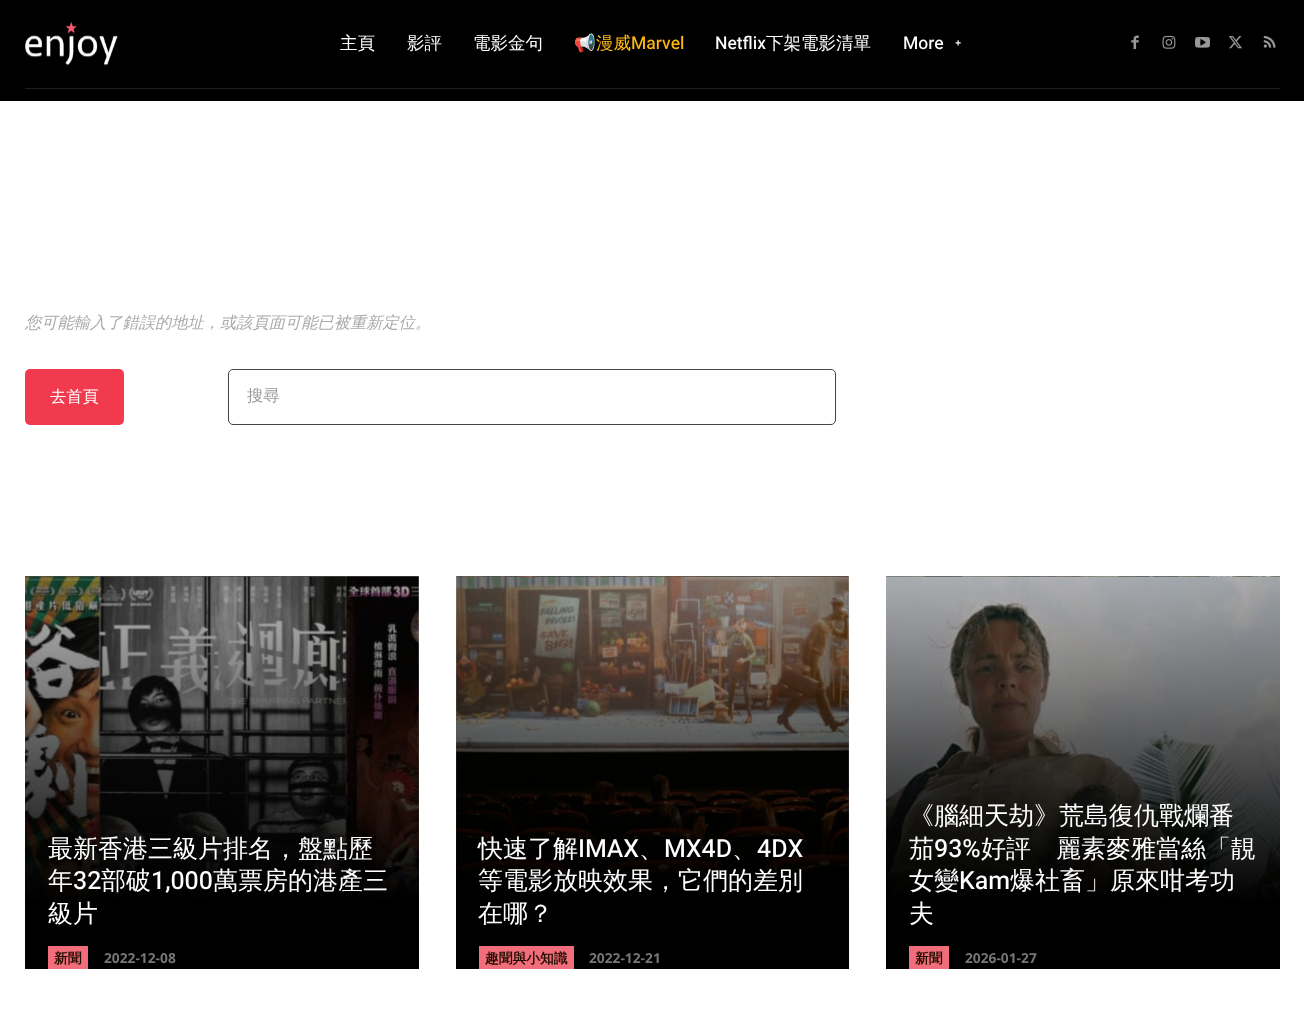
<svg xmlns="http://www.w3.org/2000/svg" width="1304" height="1017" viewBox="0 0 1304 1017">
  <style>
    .t1 { font: 500 17.5px WenQuanYi Zen Hei; fill: #fff; }
    .t2 { font: 17.5px Noto Color Emoji; fill: #ffb90f; }
    .t3 { font: 500 17.5px WenQuanYi Zen Hei; fill: #ffb90f; }
    .t4 { font: 500 17.5px Heebo; fill: #ffb90f; }
    .t5 { font: 500 17.5px Heebo; fill: #fff; }
    .t6 { font: italic 500 16.25px WenQuanYi Zen Hei; fill: #aaa; }
    .t7 { font: 500 16.25px WenQuanYi Zen Hei; fill: #fff; }
    .t8 { font: 500 16.25px WenQuanYi Zen Hei; fill: #999; }
    .t9 { font: 500 25px WenQuanYi Zen Hei; fill: #fff; }
    .t10 { font: 500 25px Heebo; fill: #fff; }
    .t11 { font: bold 13.75px WenQuanYi Zen Hei; fill: #230e00; }
    .t12 { font: bold 13.75px Open Sans; fill: #767676; }
  </style>
  <defs>
    <linearGradient id="g1" gradientUnits="userSpaceOnUse" x1="222" y1="969" x2="222" y2="576"><stop offset="0" stop-color="#000"/><stop offset="0.17" stop-color="#000"/><stop offset="1" stop-color="#000" stop-opacity="0.25"/></linearGradient>
    <linearGradient id="g2" gradientUnits="userSpaceOnUse" x1="653" y1="969" x2="653" y2="576"><stop offset="0" stop-color="#000"/><stop offset="0.17" stop-color="#000"/><stop offset="1" stop-color="#000" stop-opacity="0.25"/></linearGradient>
    <linearGradient id="g3" gradientUnits="userSpaceOnUse" x1="1083" y1="969" x2="1083" y2="576"><stop offset="0" stop-color="#000"/><stop offset="0.17" stop-color="#000"/><stop offset="1" stop-color="#000" stop-opacity="0.25"/></linearGradient>
  </defs>
  <rect width="100%" height="100%" fill="#fff"/>
  <rect x="0" y="0" width="1304" height="101" fill="#000"/>
  <image x="25" y="22" width="93" height="44" href="images/1.png"/>
  <text x="340" y="49" class="t1">主頁</text>
  <text x="407" y="49" class="t1">影評</text>
  <text x="473" y="49" class="t1">電影金句</text>
  <text x="574" y="49" class="t2">📢</text>
  <text x="596" y="49" class="t3">漫威</text>
  <text x="631" y="49" class="t4">Marvel</text>
  <text x="715" y="49" class="t5">Netflix</text>
  <text x="766" y="49" class="t1">下架電影清單</text>
  <text x="903" y="49" class="t5">More</text>
  <image x="955" y="40" width="6" height="6" href="images/2.png"/>
  <image x="1131" y="35" width="8" height="15" href="images/3.png"/>
  <image x="1162" y="35" width="14" height="14" href="images/4.png"/>
  <image x="1195" y="37" width="15" height="11" href="images/5.png"/>
  <image x="1228" y="36" width="14" height="13" href="images/6.png"/>
  <image x="1263" y="35" width="13" height="13" href="images/7.png"/>
  <rect x="25" y="88" width="1255" height="1" fill="#1f1e1e"/>
  <text x="25" y="328" class="t6">您可能輸入了錯誤的地址，或該頁面可能已被重新定位。</text>
  <rect x="25" y="369" width="99" height="56" rx="5" fill="#f23a4f"/>
  <text x="50" y="402" class="t7">去首頁</text>
  <rect x="228.5" y="369.5" width="607" height="55" rx="4.5" fill="none" stroke="#444"/>
  <text x="247" y="401" class="t8">搜尋</text>
  <image x="25" y="576" width="394" height="324" href="images/8.png"/>
  <rect x="25" y="576" width="394" height="393" fill="url(#g1)"/>
  <text x="48" y="857" class="t9">最新香港三級片排名，盤點歷</text>
  <text x="48" y="889" class="t9">年</text>
  <text x="73" y="889" class="t10">32</text>
  <text x="101" y="889" class="t9">部破</text>
  <text x="151" y="889" class="t10">1,000</text>
  <text x="213" y="889" class="t9">萬票房的港產三</text>
  <text x="48" y="922" class="t9">級片</text>
  <rect x="48" y="946" width="40" height="23" fill="#f26d7c"/>
  <text x="54" y="963" class="t11">新聞</text>
  <text x="104" y="963" class="t12">2022-12-08</text>
  <image x="456" y="576" width="393" height="324" href="images/9.png"/>
  <rect x="456" y="576" width="393" height="393" fill="url(#g2)"/>
  <text x="478" y="857" class="t9">快速了解</text>
  <text x="578" y="857" class="t10">IMAX</text>
  <text x="664" y="857" class="t10">MX4D</text>
  <text x="757" y="857" class="t10">4DX</text>
  <text x="639" y="857" class="t9">、</text>
  <text x="732" y="857" class="t9">、</text>
  <text x="478" y="889" class="t9">等電影放映效果，它們的差別</text>
  <text x="478" y="922" class="t9">在哪？</text>
  <rect x="479" y="946" width="95" height="23" fill="#f26d7c"/>
  <text x="485" y="963" class="t11">趣聞與小知識</text>
  <text x="589" y="963" class="t12">2022-12-21</text>
  <image x="886" y="576" width="394" height="324" href="images/10.png"/>
  <rect x="886" y="576" width="394" height="393" fill="url(#g3)"/>
  <text x="909" y="824" class="t9">《腦細天劫》荒島復仇戰爛番</text>
  <text x="909" y="857" class="t9">茄</text>
  <text x="934" y="857" class="t10">93%</text>
  <text x="981" y="857" class="t9">好評　麗素麥雅當絲「靚</text>
  <text x="909" y="889" class="t9">女變</text>
  <text x="959" y="889" class="t10">Kam</text>
  <text x="1010" y="889" class="t9">爆社畜」原來咁考功</text>
  <text x="909" y="922" class="t9">夫</text>
  <rect x="909" y="946" width="40" height="23" fill="#f26d7c"/>
  <text x="915" y="963" class="t11">新聞</text>
  <text x="965" y="963" class="t12">2026-01-27</text>
</svg>
